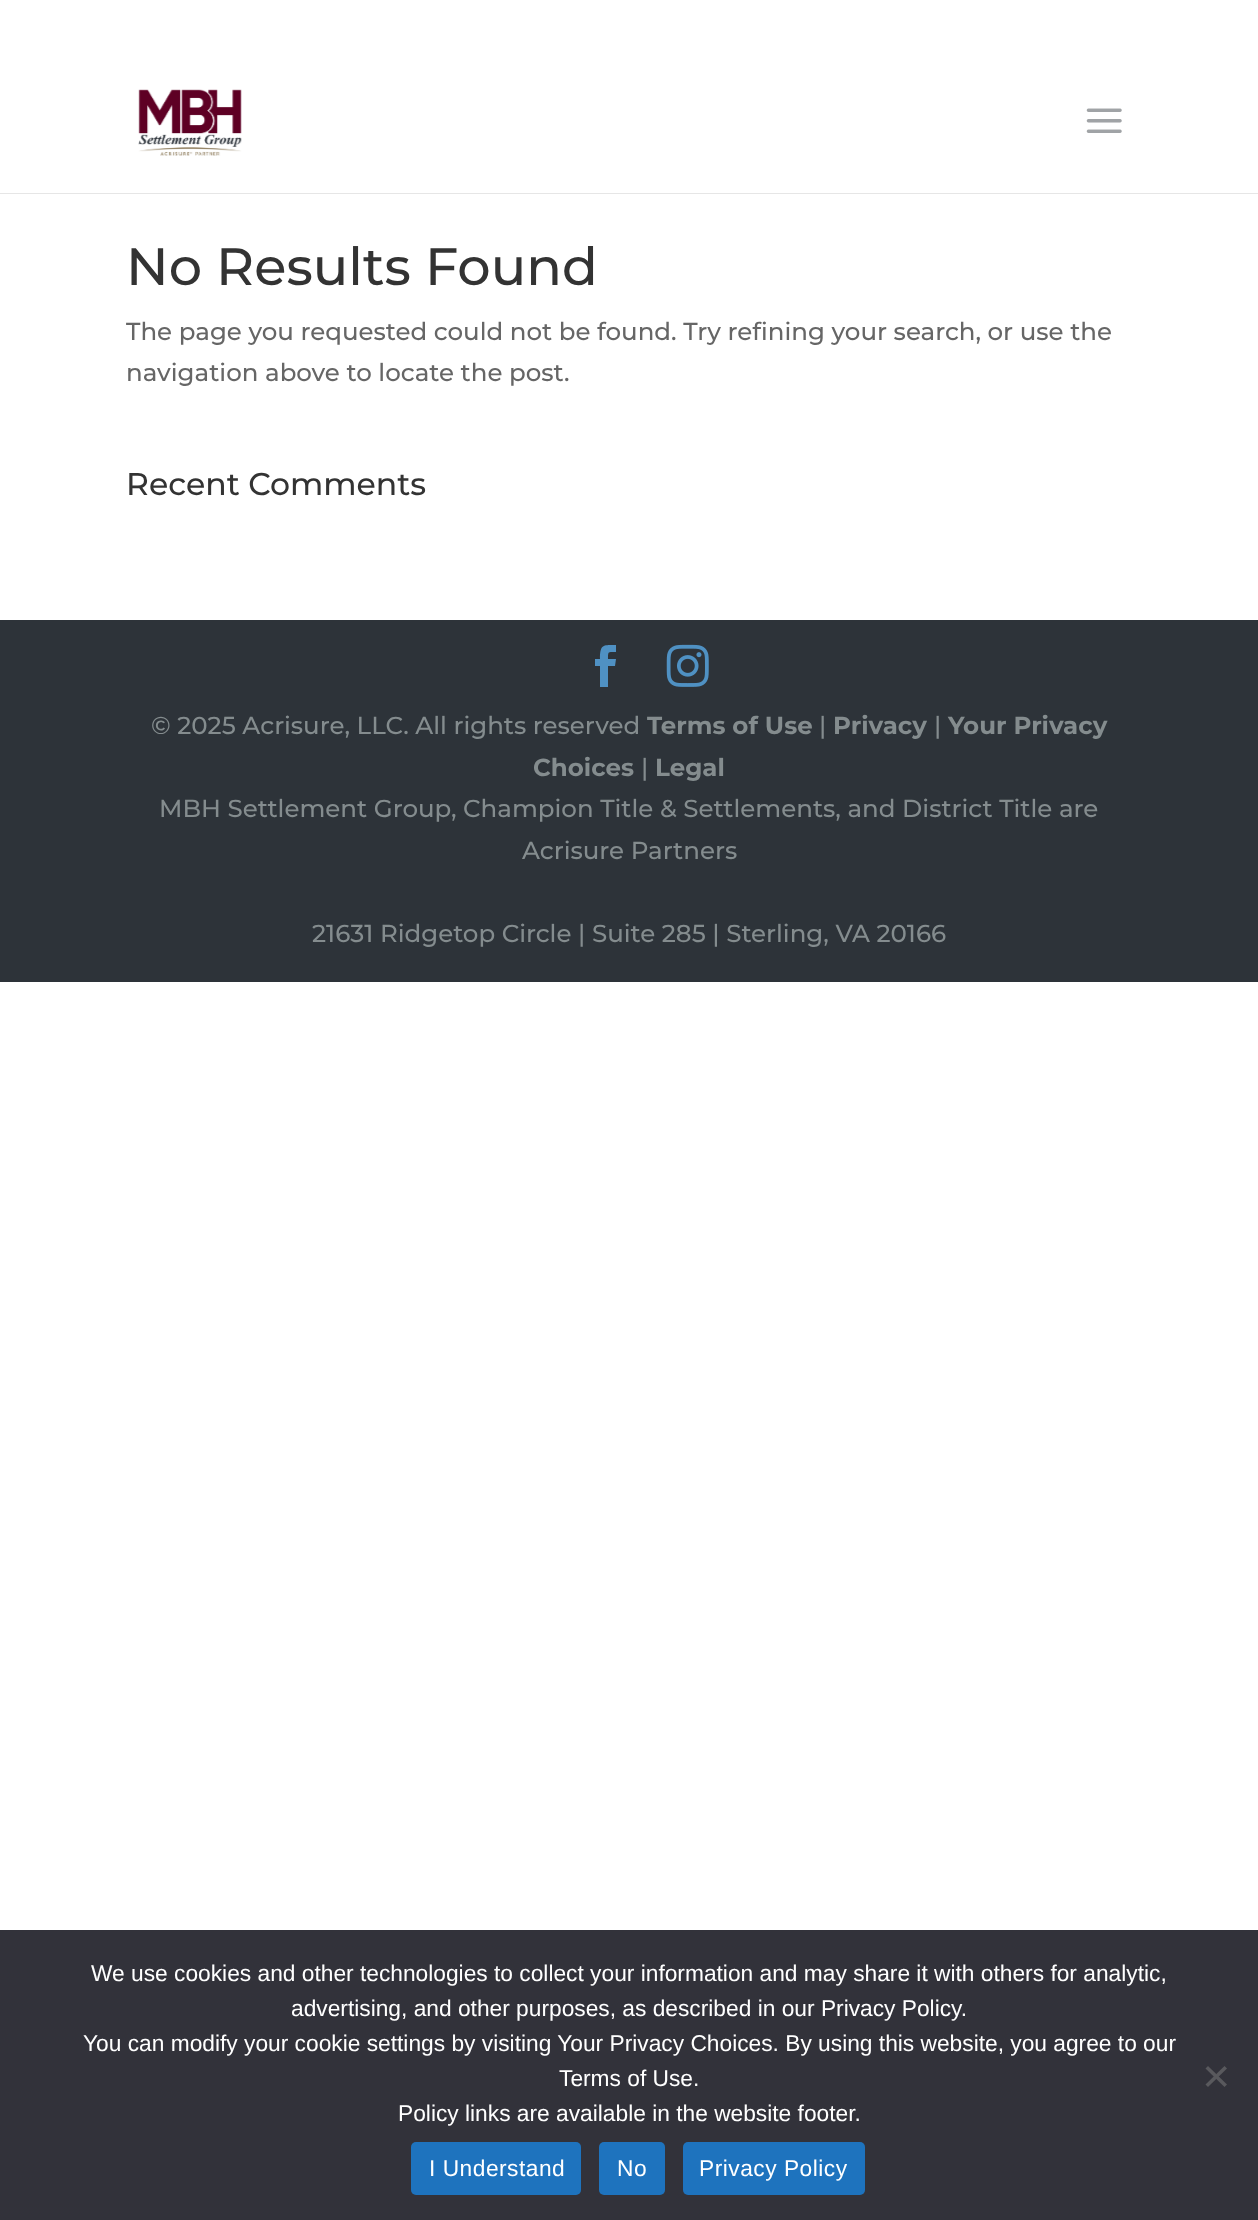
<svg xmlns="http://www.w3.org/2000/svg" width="1258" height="2220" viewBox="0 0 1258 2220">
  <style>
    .t1 { font: 500 52.5px Montserrat; fill: #333; }
    .t2 { font: 500 24.5px Montserrat; fill: #666; }
    .t3 { font: 500 31.5px Montserrat; fill: #333; }
    .t4 { font: 500 24.5px Montserrat; fill: #848c8e; }
    .t5 { font: bold 24.5px Montserrat; fill: #848c8e; }
    .t6 { font: 22.75px Liberation Sans; fill: #fff; }
    .t7 { font: 22.75px Liberation Sans; letter-spacing: 0.5px; fill: #fff; }
  </style>
  <rect width="100%" height="100%" fill="#fff"/>
  <rect x="0" y="193" width="1258" height="1" fill="#e6e6e6"/>
  <image x="138" y="89" width="104" height="67" href="images/1.png"/>
  <image x="1086" y="108" width="36" height="25" href="images/2.png"/>
  <text x="126" y="285" class="t1">No Results Found</text>
  <text x="126" y="340" class="t2">The page you requested could not be found. Try refining your search, or use the</text>
  <text x="126" y="381" class="t2">navigation above to locate the post.</text>
  <text x="126" y="495" class="t3">Recent Comments</text>
  <rect x="0" y="620" width="1258" height="362" fill="#2d3339"/>
  <path d="M600 687H608V666H615L616 659H608C608 651 608 652 616 652V645C603 645 600 644 600 659H595V666H600Z" fill="#4f91c3"/>
  <image x="666" y="644" width="43" height="43" href="images/3.png"/>
  <text x="151" y="734" class="t4">© 2025 Acrisure, LLC. All rights reserved</text>
  <text x="647" y="734" class="t5">Terms of Use</text>
  <text x="819" y="734" class="t4">|</text>
  <text x="833" y="734" class="t5">Privacy</text>
  <text x="934" y="734" class="t4">|</text>
  <text x="948" y="734" class="t5">Your Privacy</text>
  <text x="533" y="776" class="t5">Choices</text>
  <text x="641" y="776" class="t4">|</text>
  <text x="655" y="776" class="t5">Legal</text>
  <text x="159" y="817" class="t4">MBH Settlement Group, Champion Title &amp; Settlements, and District Title are</text>
  <text x="522" y="859" class="t4">Acrisure Partners</text>
  <text x="312" y="942" class="t4">21631 Ridgetop Circle | Suite 285 | Sterling, VA 20166</text>
  <rect x="0" y="1930" width="1258" height="290" fill="#32323a"/>
  <text x="91" y="1981" class="t6">We use cookies and other technologies to collect your information and may share it with others for analytic,</text>
  <text x="291" y="2016" class="t6">advertising, and other purposes, as described in our Privacy Policy.</text>
  <text x="83" y="2051" class="t6">You can modify your cookie settings by visiting Your Privacy Choices. By using this website, you agree to our</text>
  <text x="559" y="2086" class="t6">Terms of Use.</text>
  <text x="398" y="2121" class="t6">Policy links are available in the website footer.</text>
  <path d="M1224.5 2066L1227 2068.5L1208 2087L1205.5 2084.5Z" fill="#59595d"/>
  <path d="M1205.5 2068.5L1208 2066L1227 2084.5L1224.5 2087Z" fill="#59595d"/>
  <rect x="411" y="2142" width="170" height="53" rx="5" fill="#1e73be"/>
  <text x="429" y="2176" class="t7">I Understand</text>
  <rect x="599" y="2142" width="66" height="53" rx="5" fill="#1e73be"/>
  <text x="617" y="2176" class="t7">No</text>
  <rect x="683" y="2142" width="182" height="53" rx="5" fill="#1e73be"/>
  <text x="699" y="2176" class="t7">Privacy Policy</text>
</svg>
